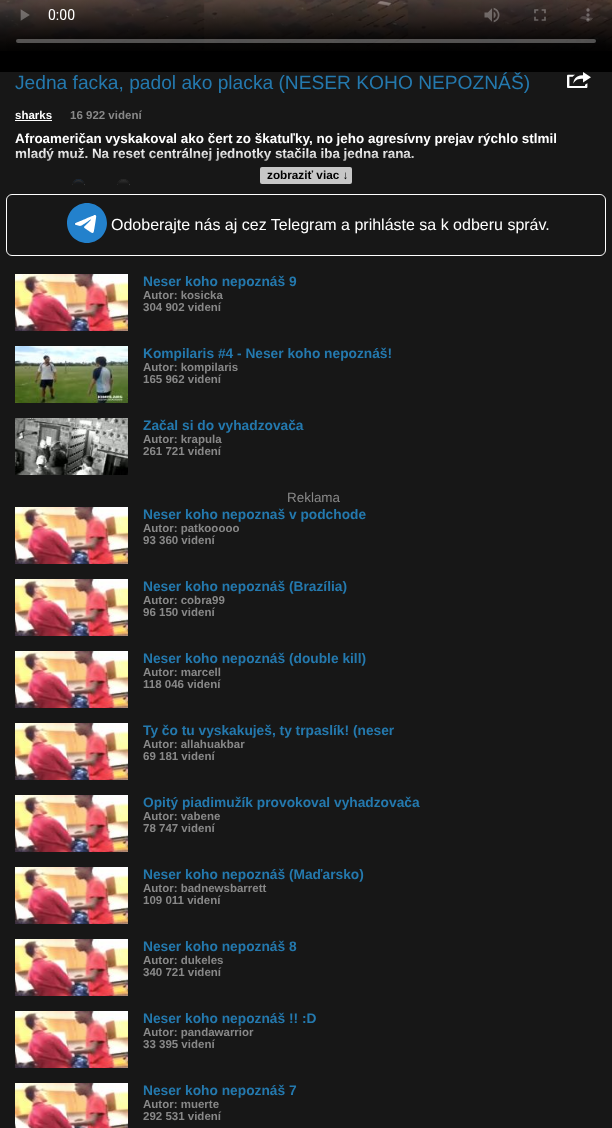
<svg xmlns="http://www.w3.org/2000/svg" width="612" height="1128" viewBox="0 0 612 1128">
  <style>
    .t1 { font: 19.2px Liberation Sans; fill: #2479ae; }
    .t2 { font: bold 11.5px Liberation Sans; fill: #fff; }
    .t3 { font: bold 11.5px Liberation Sans; fill: #888; }
    .t4 { font: bold 13.45px Liberation Sans; fill: #fff; }
    .t5 { font: bold 11.75px Liberation Sans; fill: #000; }
    .t6 { font: 16px Liberation Sans; fill: #fff; }
    .t7 { font: bold 13.75px Liberation Sans; fill: #2479ae; }
    .t8 { font: 13.45px Liberation Sans; fill: #888; }
  </style>
  <defs>
    <clipPath id="clip1"><rect x="0" y="94" width="612" height="90"/></clipPath>
    <linearGradient id="g1" gradientUnits="userSpaceOnUse" x1="306" y1="149" x2="306" y2="184"><stop offset="0" stop-color="#171717" stop-opacity="0"/><stop offset="1" stop-color="#171717"/></linearGradient>
  </defs>
  <rect width="100%" height="100%" fill="#000"/>
  <image x="0" y="0" width="612" height="51" href="images/1.png"/>
  <rect x="0" y="72" width="612" height="1056" fill="#171717"/>
  <text x="15" y="89" class="t1">Jedna facka, padol ako placka (NESER KOHO NEPOZNÁŠ)</text>
  <image x="567" y="72" width="24" height="16" href="images/2.png"/>
  <text x="15" y="119" class="t2">sharks</text>
  <rect x="15" y="120" width="37" height="1" fill="#fff"/>
  <text x="70" y="119" class="t3">16 922 videní</text>
  <text x="15" y="143" class="t4">Afroameričan vyskakoval ako čert zo škatuľky, no jeho agresívny prejav rýchlo stlmil</text>
  <text x="15" y="158" class="t4">mladý muž. Na reset centrálnej jednotky stačila iba jedna rana.</text>
  <path d="M78.5 179C82 179 85 182 85 185.5V184H72V185.5C72 182 75 179 78.5 179Z" fill="#fff"/>
  <g clip-path="url(#clip1)">
    <circle cx="78.5" cy="185.5" r="6" fill="none" stroke="#0075ff"/>
    <circle cx="78.5" cy="185.5" r="4" fill="#0075ff"/>
  </g>
  <path d="M123.5 179C127 179 130 182 130 185.5V184H117V185.5C117 182 120 179 123.5 179Z" fill="#fff"/>
  <g clip-path="url(#clip1)">
    <circle cx="123.5" cy="185.5" r="6" fill="none" stroke="#767676"/>
  </g>
  <rect x="15" y="150" width="399" height="34" fill="url(#g1)"/>
  <rect x="260" y="167" width="92" height="17" rx="2" fill="#c7c7c7"/>
  <text x="267" y="179" class="t5">zobraziť viac ↓</text>
  <rect x="6.5" y="194.5" width="599" height="61" rx="5.5" fill="none" stroke="#fff"/>
  <image x="67" y="203" width="40" height="40" href="images/3.png"/>
  <text x="111" y="230" class="t6">Odoberajte nás aj cez Telegram a prihláste sa k odberu správ.</text>
  <image x="15" y="274" width="113" height="57" href="images/4.png"/>
  <text x="143" y="286" class="t7">Neser koho nepoznáš 9</text>
  <text x="143" y="299" class="t3">Autor: kosicka</text>
  <text x="143" y="311" class="t3">304 902 videní</text>
  <image x="15" y="346" width="113" height="57" href="images/5.png"/>
  <text x="143" y="358" class="t7">Kompilaris #4 - Neser koho nepoznáš!</text>
  <text x="143" y="371" class="t3">Autor: kompilaris</text>
  <text x="143" y="383" class="t3">165 962 videní</text>
  <image x="15" y="418" width="113" height="57" href="images/6.png"/>
  <text x="143" y="430" class="t7">Začal si do vyhadzovača</text>
  <text x="143" y="443" class="t3">Autor: krapula</text>
  <text x="143" y="455" class="t3">261 721 videní</text>
  <text x="287" y="502" class="t8">Reklama</text>
  <image x="15" y="507" width="113" height="57" href="images/4.png"/>
  <text x="143" y="519" class="t7">Neser koho nepoznaš v podchode</text>
  <text x="143" y="532" class="t3">Autor: patkooooo</text>
  <text x="143" y="544" class="t3">93 360 videní</text>
  <image x="15" y="579" width="113" height="57" href="images/7.png"/>
  <text x="143" y="591" class="t7">Neser koho nepoznáš (Brazília)</text>
  <text x="143" y="604" class="t3">Autor: cobra99</text>
  <text x="143" y="616" class="t3">96 150 videní</text>
  <image x="15" y="651" width="113" height="57" href="images/7.png"/>
  <text x="143" y="663" class="t7">Neser koho nepoznáš (double kill)</text>
  <text x="143" y="676" class="t3">Autor: marcell</text>
  <text x="143" y="688" class="t3">118 046 videní</text>
  <image x="15" y="723" width="113" height="57" href="images/4.png"/>
  <text x="143" y="735" class="t7">Ty čo tu vyskakuješ, ty trpaslík! (neser</text>
  <text x="143" y="748" class="t3">Autor: allahuakbar</text>
  <text x="143" y="760" class="t3">69 181 videní</text>
  <image x="15" y="795" width="113" height="57" href="images/4.png"/>
  <text x="143" y="807" class="t7">Opitý piadimužík provokoval vyhadzovača</text>
  <text x="143" y="820" class="t3">Autor: vabene</text>
  <text x="143" y="832" class="t3">78 747 videní</text>
  <image x="15" y="867" width="113" height="57" href="images/4.png"/>
  <text x="143" y="879" class="t7">Neser koho nepoznáš (Maďarsko)</text>
  <text x="143" y="892" class="t3">Autor: badnewsbarrett</text>
  <text x="143" y="904" class="t3">109 011 videní</text>
  <image x="15" y="939" width="113" height="57" href="images/7.png"/>
  <text x="143" y="951" class="t7">Neser koho nepoznáš 8</text>
  <text x="143" y="964" class="t3">Autor: dukeles</text>
  <text x="143" y="976" class="t3">340 721 videní</text>
  <image x="15" y="1011" width="113" height="57" href="images/4.png"/>
  <text x="143" y="1023" class="t7">Neser koho nepoznáš !! :D</text>
  <text x="143" y="1036" class="t3">Autor: pandawarrior</text>
  <text x="143" y="1048" class="t3">33 395 videní</text>
  <image x="15" y="1083" width="113" height="45" href="images/8.png"/>
  <text x="143" y="1095" class="t7">Neser koho nepoznáš 7</text>
  <text x="143" y="1108" class="t3">Autor: muerte</text>
  <text x="143" y="1120" class="t3">292 531 videní</text>
</svg>
